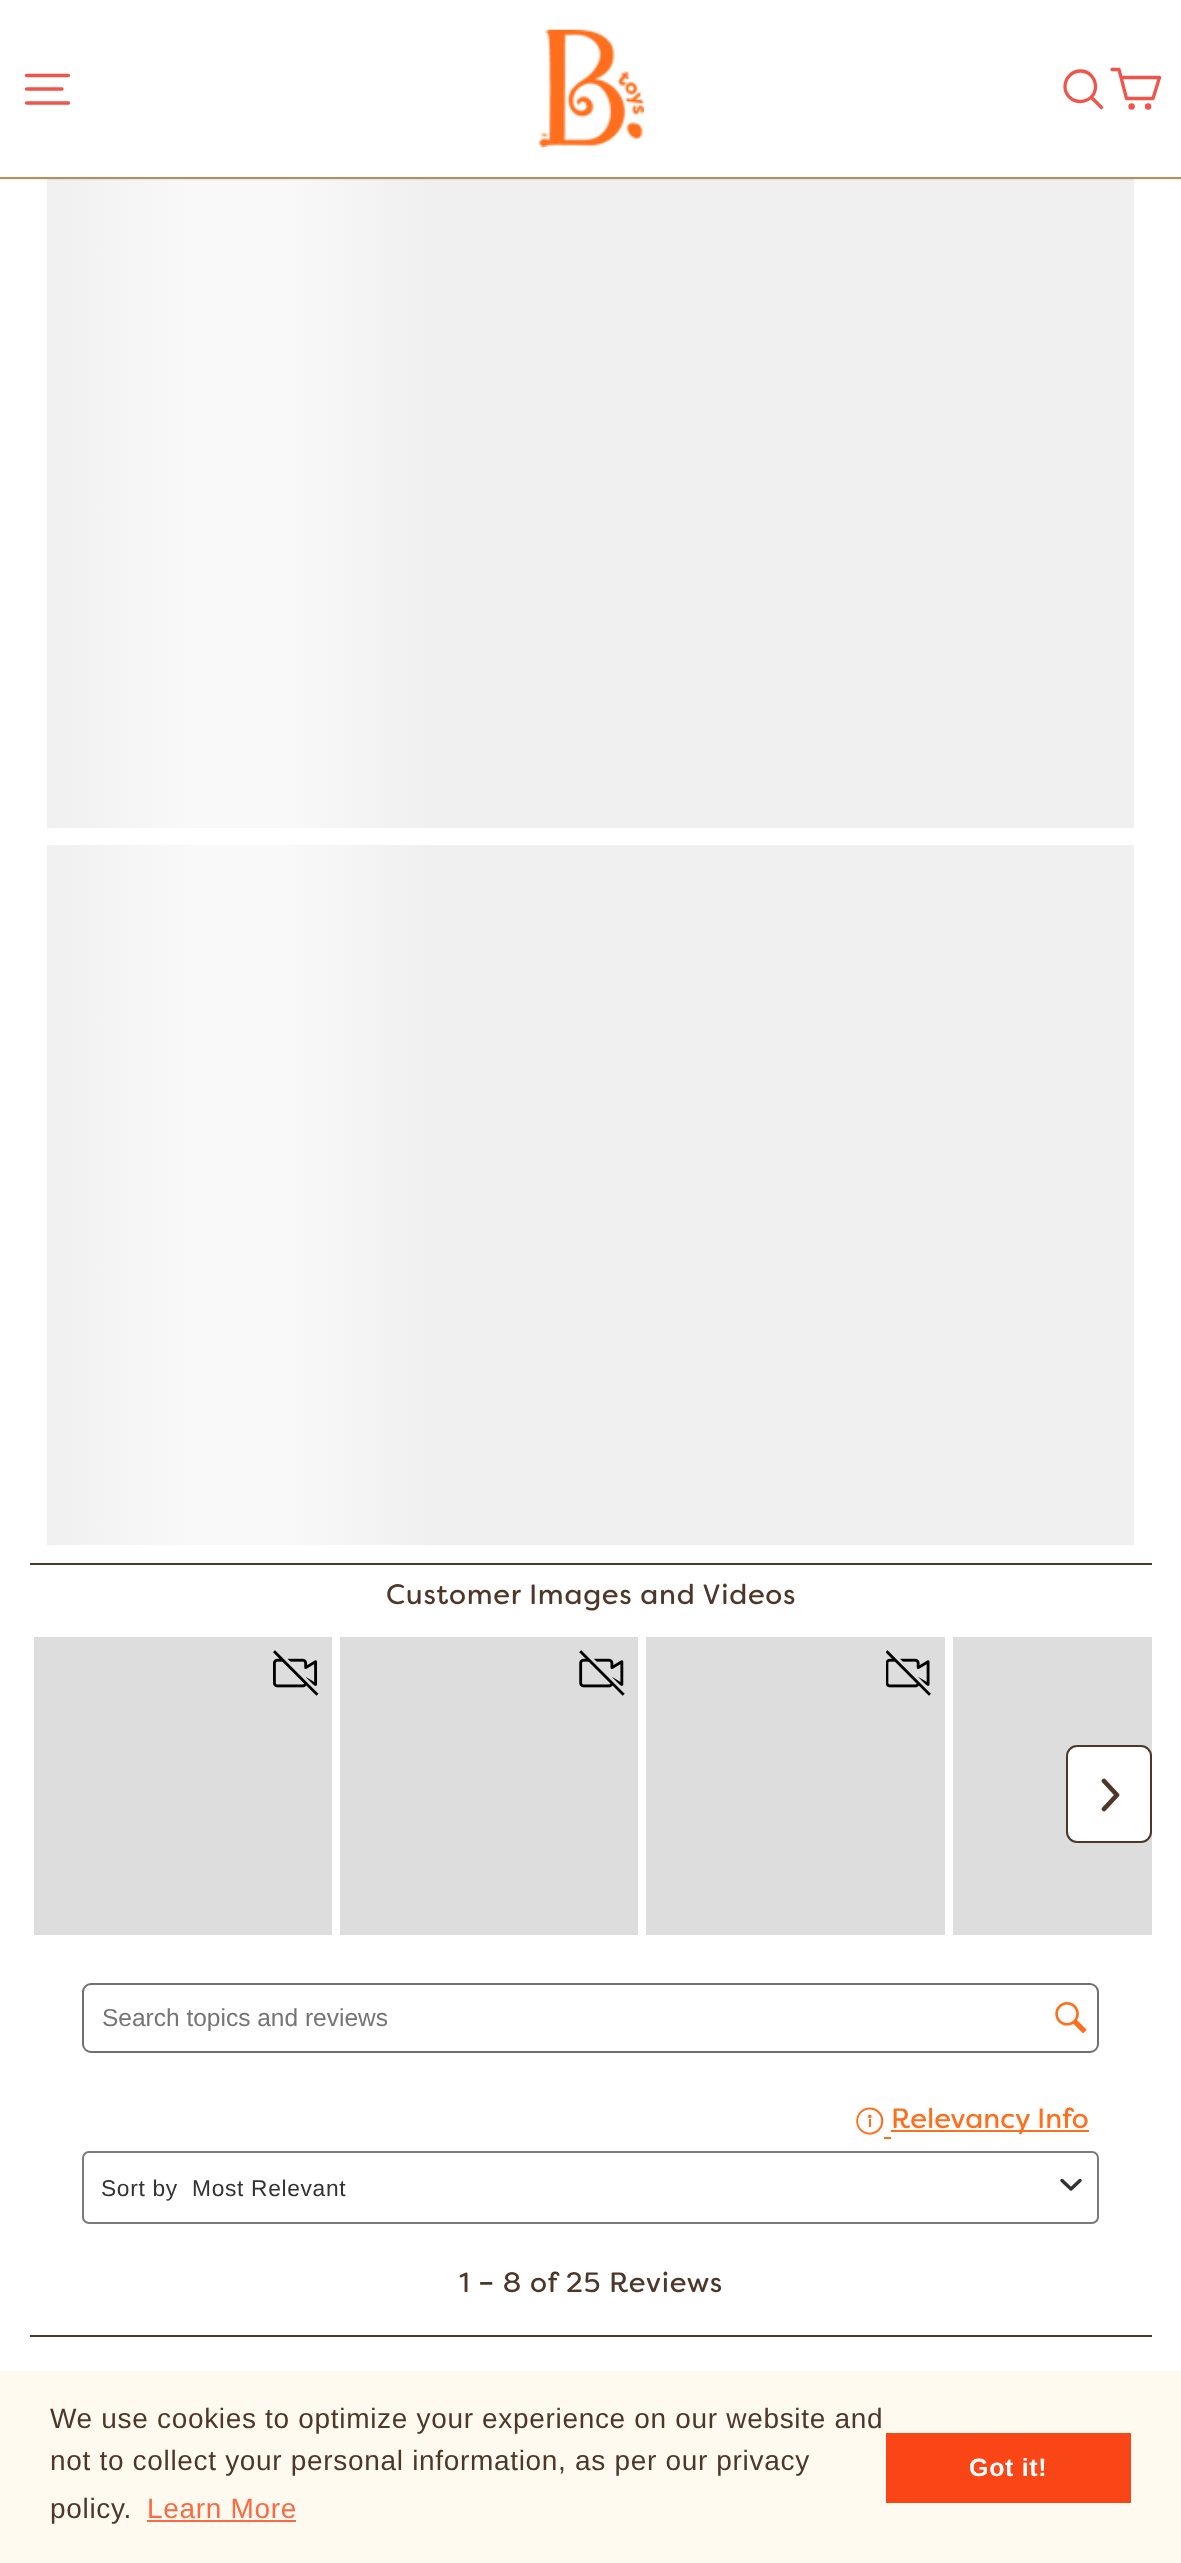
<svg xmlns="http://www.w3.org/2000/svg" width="1181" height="2563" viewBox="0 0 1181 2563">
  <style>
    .t1 { font: 28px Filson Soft; letter-spacing: 0.68px; fill: #4e3629; }
    .t2 { font: 24.5px Liberation Sans; fill: #757575; }
    .t3 { font: 28px Filson Soft; fill: #ff6e1c; }
    .t4 { font: 22.75px Liberation Sans; letter-spacing: 0.68px; fill: #333; }
    .t5 { font: 28px Liberation Sans; letter-spacing: 0.68px; fill: #4e3629; }
    .t6 { font: 28px Liberation Sans; letter-spacing: 0.68px; fill: #fb6a42; }
    .t7 { font: bold 25px Liberation Sans; letter-spacing: 0.68px; fill: #fff; }
  </style>
  <defs>
    <linearGradient id="g1" gradientUnits="userSpaceOnUse" x1="47" y1="478" x2="428" y2="478"><stop offset="0" stop-color="#f0f0f0"/><stop offset="0.38" stop-color="#f9f9f9"/><stop offset="0.62" stop-color="#f9f9f9"/><stop offset="1" stop-color="#f0f0f0"/></linearGradient>
    <linearGradient id="g2" gradientUnits="userSpaceOnUse" x1="47" y1="1195" x2="428" y2="1195"><stop offset="0" stop-color="#f0f0f0"/><stop offset="0.38" stop-color="#f9f9f9"/><stop offset="0.62" stop-color="#f9f9f9"/><stop offset="1" stop-color="#f0f0f0"/></linearGradient>
  </defs>
  <rect width="100%" height="100%" fill="#fff"/>
  <rect x="47" y="179" width="1087" height="649" fill="#f0f0f0"/>
  <path d="M56 128H427V828H56C51 828 47 824 47 819V137C47 132 51 128 56 128Z" fill="url(#g1)"/>
  <rect x="0" y="0" width="1181" height="179" fill="#00000033" filter="blur(1px)"/>
  <rect x="0" y="0" width="1181" height="177" fill="#fff"/>
  <rect x="0" y="177" width="1181" height="2" fill="#b78f57"/>
  <path d="M26.5 75.5H68.5M26.5 89H62M26.5 103H68.5" fill="none" stroke="#f0544a" stroke-width="3.3" stroke-linecap="round" stroke-linejoin="round"/>
  <image x="538" y="29" width="106" height="118" href="images/1.png"/>
  <path d="M1095.5 86.5C1095.5 95 1089 101.5 1080.5 101.5C1072 101.5 1065 95 1065 86.5C1065 78 1072 71 1080.5 71C1089 71 1095.5 78 1095.5 86.5ZM1101.5 107.5L1091.5 97.5" fill="none" stroke="#f0544a" stroke-width="3.3" stroke-linecap="round" stroke-linejoin="round"/>
  <path d="M1121 77.5H1159.5L1153 98.5H1126.5L1119 69.5H1112" fill="none" stroke="#f0544a" stroke-width="3.3" stroke-linecap="round" stroke-linejoin="round"/>
  <circle cx="1131.6" cy="106.5" r="1.6" fill="none" stroke="#f0544a" stroke-width="3.3"/>
  <circle cx="1148.1" cy="106.5" r="1.6" fill="none" stroke="#f0544a" stroke-width="3.3"/>
  <rect x="30" y="1563" width="1122" height="2" fill="#4e3629"/>
  <rect x="47" y="845" width="1087" height="700" fill="#f0f0f0"/>
  <path d="M56 845H427V1545H56C51 1545 47 1541 47 1536V854C47 849 51 845 56 845Z" fill="url(#g2)"/>
  <text x="386" y="1604" class="t1">Customer Images and Videos</text>
  <rect x="34" y="1637" width="298" height="298" fill="#ddd"/>
  <image x="273" y="1650" width="46" height="46" href="images/2.png"/>
  <rect x="340" y="1637" width="298" height="298" fill="#ddd"/>
  <image x="579" y="1650" width="46" height="46" href="images/3.png"/>
  <rect x="646" y="1637" width="299" height="298" fill="#ddd"/>
  <image x="886" y="1650" width="45" height="46" href="images/4.png"/>
  <rect x="953" y="1637" width="199" height="298" fill="#ddd"/>
  <rect x="1067" y="1746" width="84" height="96" rx="10" fill="#fff" stroke="#4e3629" stroke-width="2"/>
  <path d="M1104 1781L1117 1795L1104 1809" fill="none" stroke="#4e3629" stroke-width="4.7" stroke-linecap="round" stroke-linejoin="round"/>
  <rect x="83" y="1984" width="1015" height="68" rx="8" fill="none" stroke="#707070" stroke-width="2"/>
  <text x="102" y="2026" class="t2">Search topics and reviews</text>
  <image x="1055" y="2002" width="32" height="32" href="images/5.png"/>
  <rect x="30" y="2335" width="1122" height="2" fill="#4e3629"/>
  <image x="856" y="2107" width="28" height="28" href="images/6.png"/>
  <rect x="891" y="2130" width="198" height="2" fill="#ff6e1c"/>
  <text x="891" y="2128" class="t3">Relevancy Info</text>
  <rect x="884" y="2137" width="7" height="2" fill="#ff6e1c"/>
  <rect x="83" y="2152" width="1015" height="71" rx="6" fill="none" stroke="#7a7a7a" stroke-width="2"/>
  <text x="101" y="2196" class="t4">Sort by</text>
  <text x="192" y="2196" class="t4">Most Relevant</text>
  <path d="M1062 2180.5L1071 2189L1080 2180.5" fill="none" stroke="#333" stroke-width="3.5" stroke-linecap="round" stroke-linejoin="round"/>
  <text x="459" y="2292" class="t1">1 – 8 of 25 Reviews</text>
  <rect x="0" y="2371" width="1181" height="192" fill="#fffaf0"/>
  <text x="50" y="2428" class="t5">We use cookies to optimize your experience on our website and</text>
  <text x="50" y="2470" class="t5">not to collect your personal information, as per our privacy</text>
  <text x="50" y="2518" class="t5">policy.</text>
  <text x="147" y="2518" class="t6">Learn More</text>
  <rect x="147" y="2520" width="149" height="2" fill="#fb6a42"/>
  <rect x="886" y="2433" width="245" height="70" fill="#fa4616"/>
  <text x="969" y="2476" class="t7">Got it!</text>
</svg>
